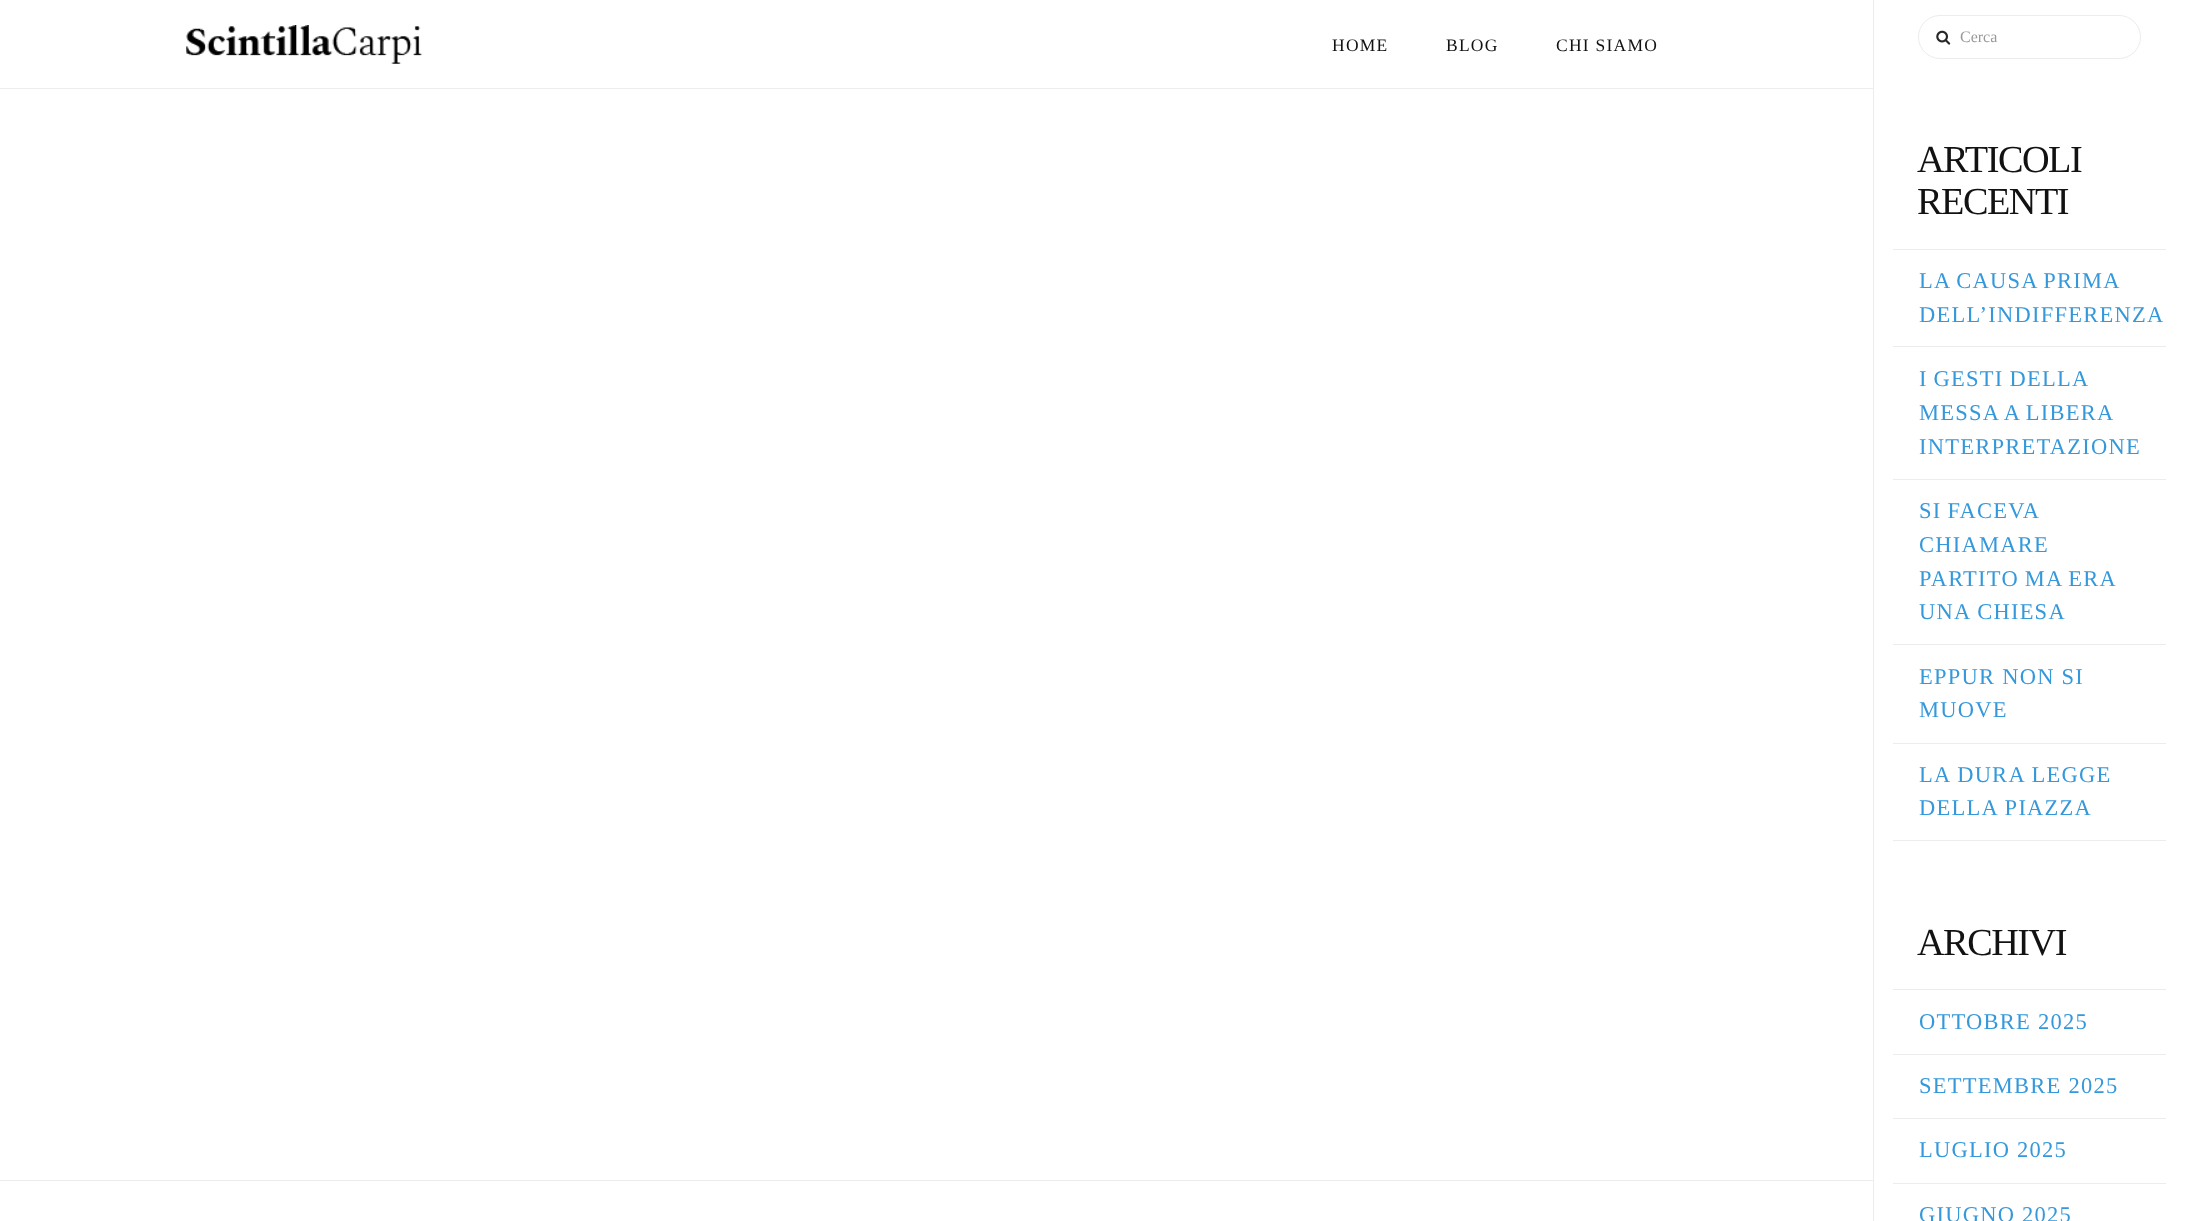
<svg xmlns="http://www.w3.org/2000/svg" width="2185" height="1221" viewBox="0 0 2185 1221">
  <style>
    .t1 { font: 17.5px Liberation Serif; letter-spacing: 1.25px; fill: #121212; }
    .t2 { font: 16px Liberation Serif; fill: #999; }
    .t3 { font: 38.25px Liberation Serif; letter-spacing: -1.5px; fill: #121212; }
    .t4 { font: 22.5px Liberation Serif; letter-spacing: 1.25px; fill: #3498db; }
  </style>
  <rect width="100%" height="100%" fill="#fff"/>
  <rect x="0" y="88" width="1873" height="1" fill="#ececec"/>
  <image x="186" y="25" width="237" height="39" href="images/1.png"/>
  <text x="1332" y="51" class="t1">HOME</text>
  <text x="1446" y="51" class="t1">BLOG</text>
  <text x="1556" y="51" class="t1">CHI SIAMO</text>
  <rect x="1873" y="0" width="1" height="1221" fill="#ececec"/>
  <rect x="1918.5" y="15.5" width="222" height="43" rx="21.5" fill="none" stroke="#ececec"/>
  <image x="1936" y="30" width="15" height="15" href="images/2.png"/>
  <text x="1960" y="42" class="t2">Cerca</text>
  <text x="1917" y="172" class="t3">ARTICOLI</text>
  <text x="1917" y="214" class="t3">RECENTI</text>
  <rect x="1893" y="249" width="273" height="1" fill="#ececec"/>
  <rect x="1893" y="346" width="273" height="1" fill="#ececec"/>
  <text x="1919" y="288" word-spacing="-1" class="t4">LA CAUSA PRIMA</text>
  <text x="1919" y="322" class="t4">DELL’INDIFFERENZA</text>
  <rect x="1893" y="479" width="273" height="1" fill="#ececec"/>
  <text x="1919" y="386" word-spacing="-1" class="t4">I GESTI DELLA</text>
  <text x="1919" y="420" word-spacing="-1" class="t4">MESSA A LIBERA</text>
  <text x="1919" y="454" class="t4">INTERPRETAZIONE</text>
  <rect x="1893" y="644" width="273" height="1" fill="#ececec"/>
  <text x="1919" y="518" word-spacing="-1" class="t4">SI FACEVA</text>
  <text x="1919" y="552" class="t4">CHIAMARE</text>
  <text x="1919" y="586" word-spacing="-1" class="t4">PARTITO MA ERA</text>
  <text x="1919" y="619" class="t4">UNA CHIESA</text>
  <rect x="1893" y="743" width="273" height="1" fill="#ececec"/>
  <text x="1919" y="684" class="t4">EPPUR NON SI</text>
  <text x="1919" y="717" class="t4">MUOVE</text>
  <rect x="1893" y="840" width="273" height="1" fill="#ececec"/>
  <text x="1919" y="782" class="t4">LA DURA LEGGE</text>
  <text x="1919" y="815" class="t4">DELLA PIAZZA</text>
  <text x="1917" y="955" class="t3">ARCHIVI</text>
  <rect x="1893" y="989" width="273" height="1" fill="#ececec"/>
  <rect x="1893" y="1054" width="273" height="1" fill="#ececec"/>
  <text x="1919" y="1029" class="t4">OTTOBRE 2025</text>
  <rect x="1893" y="1118" width="273" height="1" fill="#ececec"/>
  <text x="1919" y="1093" class="t4">SETTEMBRE 2025</text>
  <rect x="1893" y="1183" width="273" height="1" fill="#ececec"/>
  <text x="1919" y="1157" class="t4">LUGLIO 2025</text>
  <text x="1919" y="1222" class="t4">GIUGNO 2025</text>
  <rect x="0" y="1180" width="1873" height="1" fill="#ececec"/>
</svg>
